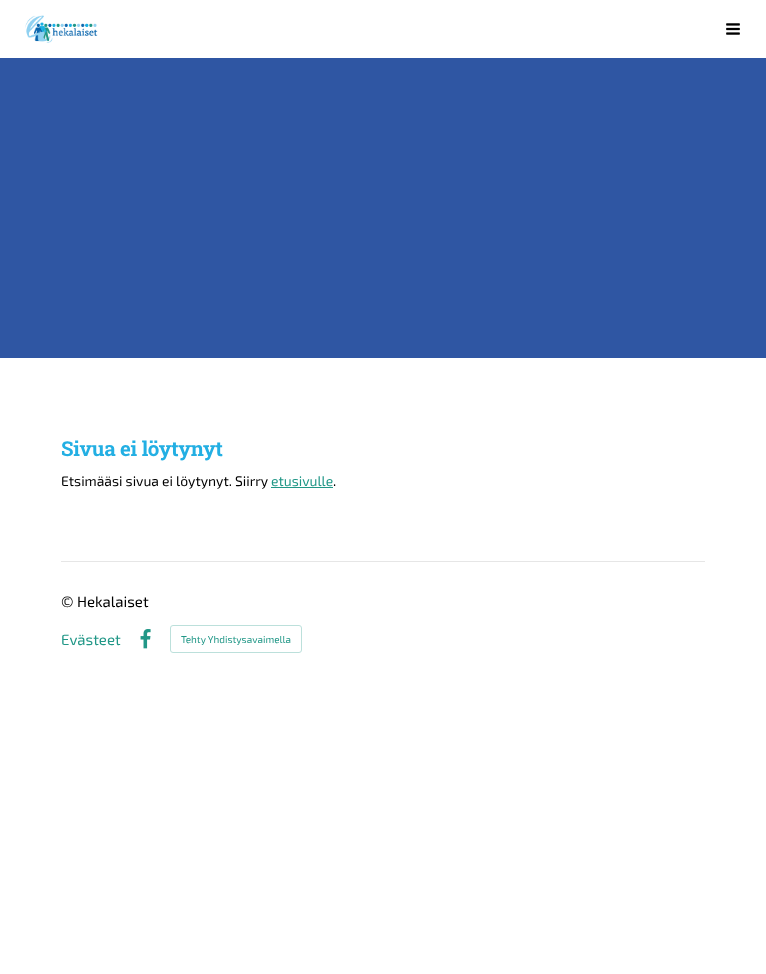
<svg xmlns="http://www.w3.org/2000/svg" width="766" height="974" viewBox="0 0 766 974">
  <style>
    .t1 { font: bold 20.5px Roboto Slab; letter-spacing: -0.3px; fill: #23afe3; }
    .t2 { font: 13.9px 'Exo 2'; fill: #000; }
    .t3 { font: 13.9px 'Exo 2'; fill: #219787; }
    .t4 { font: 15px 'Exo 2'; fill: #000; }
    .t5 { font: 15px 'Exo 2'; fill: #219787; }
    .t6 { font: 10px 'Exo 2'; fill: #219787; }
  </style>
  <rect width="100%" height="100%" fill="#fff"/>
  <image x="25" y="15" width="73" height="28" href="images/1.png"/>
  <image x="726" y="23" width="14" height="12" href="images/2.png"/>
  <rect x="0" y="58" width="766" height="300" fill="#2f56a3"/>
  <text x="61" y="456" class="t1">Sivua ei löytynyt</text>
  <text x="61" y="486" class="t2">Etsimääsi sivua ei löytynyt. Siirry</text>
  <text x="271" y="486" class="t3">etusivulle</text>
  <rect x="271" y="487" width="62" height="1" fill="#219787"/>
  <text x="333" y="486" class="t2">.</text>
  <rect x="61" y="561" width="644" height="1" fill="#e6e6e6"/>
  <text x="61" y="607" class="t4">© Hekalaiset</text>
  <text x="61" y="645" class="t5">Evästeet</text>
  <image x="140" y="629" width="11" height="20" href="images/3.png"/>
  <rect x="170.5" y="625.5" width="131" height="27" rx="2.5" fill="none" stroke="#bce0db"/>
  <text x="181" y="643" class="t6">Tehty Yhdistysavaimella</text>
</svg>
